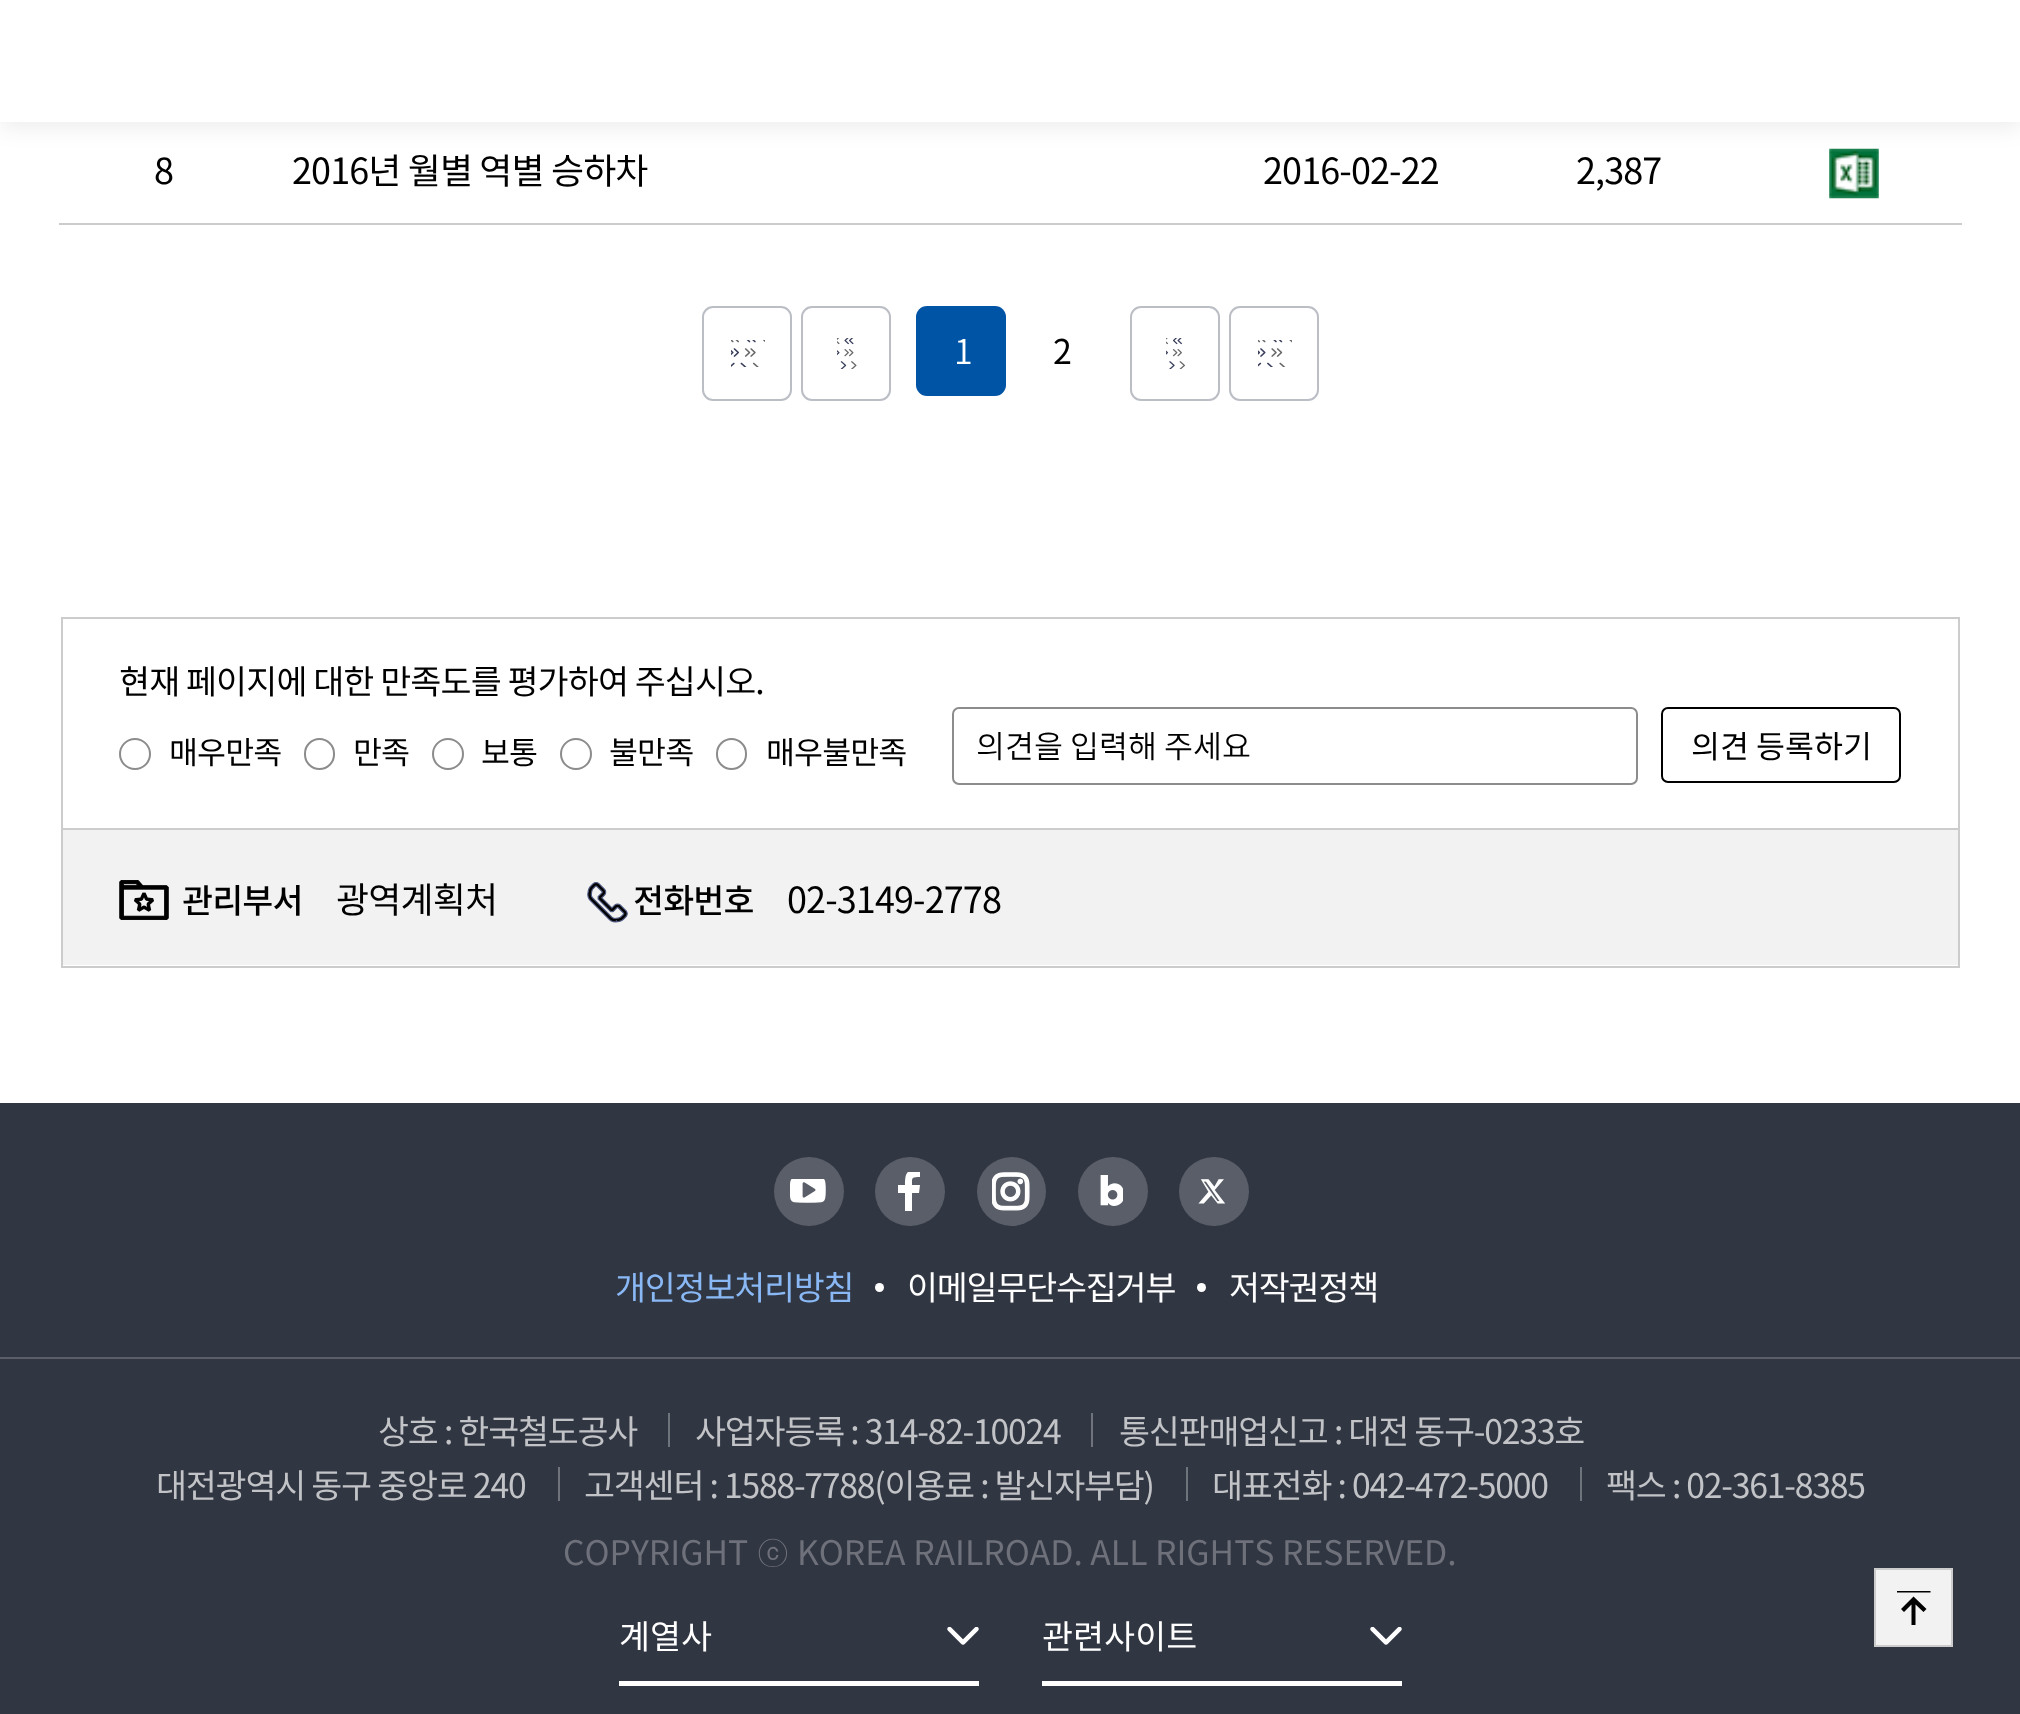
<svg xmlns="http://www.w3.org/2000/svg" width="2020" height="1714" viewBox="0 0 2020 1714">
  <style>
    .t1 { font: 36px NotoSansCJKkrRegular; letter-spacing: -0.9px; fill: #000; }
    .t2 { font: 34px 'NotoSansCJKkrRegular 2'; letter-spacing: -4px; fill: #fff; }
    .t3 { font: 34px NotoSansCJKkrRegular; letter-spacing: -4px; fill: #000; }
    .t4 { font: 33.75px NotoSansCJKkrRegular; letter-spacing: -0.9px; fill: #000; }
    .t5 { font: 31.5px NotoSansCJKkrRegular; letter-spacing: -0.9px; fill: #000; }
    .t6 { font: 31.5px 'NotoSansCJKkrRegular 2'; fill: #000; }
    .t7 { font: 31.5px NotoSansCJKkrRegular; fill: #000; }
    .t8 { font: 33.75px 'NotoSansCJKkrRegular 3'; letter-spacing: -0.9px; fill: #000; }
    .t9 { font: 33.75px NotoSansCJKkrRegular; letter-spacing: -1.25px; fill: #89b8f5; }
    .t10 { font: 33.75px NotoSansCJKkrRegular; letter-spacing: -1.25px; fill: #fff; }
    .t11 { font: 33.75px NotoSansCJKkrRegular; letter-spacing: -1.25px; fill: #c1c3c6; }
    .t12 { font: 33.75px NotoSansCJKkrRegular; fill: #6e707a; }
    .t13 { font: 33.75px Dotum; fill: #6e707a; }
    .t14 { font: 33.75px NotoSansCJKkrRegular; fill: #fff; }
  </style>
  <defs>
    <clipPath id="clip1"><rect x="898" y="1172" width="22" height="39"/></clipPath>
    <clipPath id="clip2"><rect x="1897" y="1591" width="34" height="36"/></clipPath>
  </defs>
  <rect width="100%" height="100%" fill="#fff"/>
  <image x="1829" y="148" width="50" height="51" href="images/1.png"/>
  <rect x="0" y="7" width="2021" height="121" fill="#00000012" filter="blur(11px)"/>
  <rect x="0" y="0" width="2020" height="122" fill="#fff"/>
  <rect x="59" y="223" width="1903" height="2" fill="#ccc"/>
  <text x="154" y="184" class="t1">8</text>
  <text x="292" y="184" class="t1">2016년 월별 역별 승하차</text>
  <text x="1263" y="184" class="t1">2016-02-22</text>
  <text x="1576" y="184" class="t1">2,387</text>
  <rect x="703" y="307" width="88" height="93" rx="10" fill="none" stroke="#bcbec6" stroke-width="2"/>
  <image x="731" y="340" width="34" height="27" href="images/2.png"/>
  <rect x="802" y="307" width="88" height="93" rx="10" fill="none" stroke="#bcbec6" stroke-width="2"/>
  <image x="837" y="338" width="20" height="31" href="images/3.png"/>
  <rect x="916" y="306" width="90" height="90" rx="11" fill="#0054a6"/>
  <text x="954" y="364" class="t2">1</text>
  <text x="1053" y="364" class="t3">2</text>
  <rect x="1131" y="307" width="88" height="93" rx="10" fill="none" stroke="#bcbec6" stroke-width="2"/>
  <image x="1166" y="338" width="19" height="31" href="images/4.png"/>
  <rect x="1230" y="307" width="88" height="93" rx="10" fill="none" stroke="#bcbec6" stroke-width="2"/>
  <image x="1258" y="340" width="34" height="27" href="images/5.png"/>
  <rect x="62" y="618" width="1897" height="349" fill="none" stroke="#ccc" stroke-width="2"/>
  <text x="119" y="694" class="t4">현재 페이지에 대한 만족도를 평가하여 주십시오.</text>
  <circle cx="135" cy="754" r="15" fill="none" stroke="#8c8c8c" stroke-width="2"/>
  <text x="169" y="764" class="t5">매우만족</text>
  <rect x="305" y="739" width="29" height="30" rx="14.5" fill="none" stroke="#8c8c8c" stroke-width="2"/>
  <text x="353" y="764" class="t5">만족</text>
  <circle cx="448" cy="754" r="15" fill="none" stroke="#8c8c8c" stroke-width="2"/>
  <text x="481" y="764" class="t5">보통</text>
  <circle cx="576" cy="754" r="15" fill="none" stroke="#8c8c8c" stroke-width="2"/>
  <text x="609" y="764" class="t5">불만족</text>
  <rect x="717" y="739" width="29" height="30" rx="14.5" fill="none" stroke="#8c8c8c" stroke-width="2"/>
  <text x="766" y="764" class="t5">매우불만족</text>
  <rect x="953" y="708" width="684" height="76" rx="6" fill="none" stroke="#8c8c8c" stroke-width="2"/>
  <text x="976" y="758" class="t6">의견을 입력해 주세요</text>
  <rect x="1662" y="708" width="238" height="74" rx="6" fill="none" stroke="#000" stroke-width="2"/>
  <text x="1691" y="758" class="t7">의견 등록하기</text>
  <rect x="63" y="830" width="1895" height="135" fill="#f2f2f2"/>
  <rect x="63" y="828" width="1895" height="2" fill="#ccc"/>
  <image x="119" y="880" width="50" height="40" href="images/6.png"/>
  <text x="182" y="913" class="t8">관리부서</text>
  <text x="336" y="913" class="t1">광역계획처</text>
  <image x="587" y="882" width="41" height="41" href="images/7.png"/>
  <text x="633" y="913" class="t8">전화번호</text>
  <text x="787" y="913" class="t1">02-3149-2778</text>
  <rect x="0" y="1103" width="2020" height="611" fill="#303642"/>
  <rect x="0" y="1357" width="2020" height="2" fill="#595e68"/>
  <rect x="774" y="1157" width="70" height="69" rx="34.5" fill="#595e68"/>
  <image x="790" y="1179" width="36" height="24" href="images/8.png"/>
  <rect x="875" y="1157" width="70" height="69" rx="34.5" fill="#595e68"/>
  <g clip-path="url(#clip1)">
    <path d="M898 1185V1193H905V1212H912V1193H919L920 1185H912C912 1178 911 1177 920 1177V1170C907 1169 905 1172 905 1185Z" fill="#fff"/>
  </g>
  <circle cx="1011.5" cy="1191.5" r="34.5" fill="#595e68"/>
  <image x="992" y="1172" width="38" height="39" href="images/9.png"/>
  <rect x="1078" y="1157" width="70" height="69" rx="34.5" fill="#595e68"/>
  <image x="1100" y="1175" width="23" height="31" href="images/10.png"/>
  <rect x="1179" y="1157" width="70" height="69" rx="34.5" fill="#595e68"/>
  <image x="1198" y="1179" width="27" height="25" href="images/11.png"/>
  <text x="615" y="1300" class="t9">개인정보처리방침</text>
  <circle cx="879.5" cy="1287.5" r="4.5" fill="#fff"/>
  <text x="907" y="1300" class="t10">이메일무단수집거부</text>
  <circle cx="1201.5" cy="1287.5" r="4.5" fill="#fff"/>
  <text x="1229" y="1300" class="t10">저작권정책</text>
  <text x="378" y="1444" class="t11">상호 : 한국철도공사</text>
  <rect x="668" y="1413" width="2" height="34" fill="#6f737b"/>
  <text x="695" y="1444" class="t11">사업자등록 : 314-82-10024</text>
  <rect x="1091" y="1413" width="2" height="34" fill="#6f737b"/>
  <text x="1119" y="1444" class="t11">통신판매업신고 : 대전 동구-0233호</text>
  <text x="156" y="1498" class="t11">대전광역시 동구 중앙로 240</text>
  <rect x="558" y="1467" width="2" height="34" fill="#6f737b"/>
  <text x="584" y="1498" class="t11">고객센터 : 1588-7788(이용료 : 발신자부담)</text>
  <rect x="1186" y="1467" width="2" height="34" fill="#6f737b"/>
  <text x="1212" y="1498" class="t11">대표전화 : 042-472-5000</text>
  <rect x="1580" y="1467" width="2" height="34" fill="#6f737b"/>
  <text x="1606" y="1498" class="t11">팩스 : 02-361-8385</text>
  <text x="563" y="1565" class="t12">COPYRIGHT</text>
  <text x="756" y="1565" class="t13">ⓒ</text>
  <text x="797" y="1565" class="t12">KOREA RAILROAD. ALL RIGHTS RESERVED.</text>
  <text x="619" y="1649" class="t14">계열사</text>
  <image x="947" y="1627" width="32" height="18" href="images/12.png"/>
  <rect x="619" y="1681" width="360" height="5" fill="#fff"/>
  <text x="1042" y="1649" class="t14">관련사이트</text>
  <image x="1370" y="1627" width="32" height="18" href="images/12.png"/>
  <rect x="1042" y="1681" width="360" height="5" fill="#fff"/>
  <rect x="1875" y="1569" width="77" height="77" fill="#f2f2f2" stroke="#ccc" stroke-width="2"/>
  <g clip-path="url(#clip2)">
    <path d="M1904 1612L1901 1609L1913.5 1596.5L1926.5 1609L1923.5 1612L1915.5 1604.5V1625H1911.5V1604.5ZM1897 1588.5V1592.5H1930.5V1588.5Z" fill="#000"/>
  </g>
</svg>
